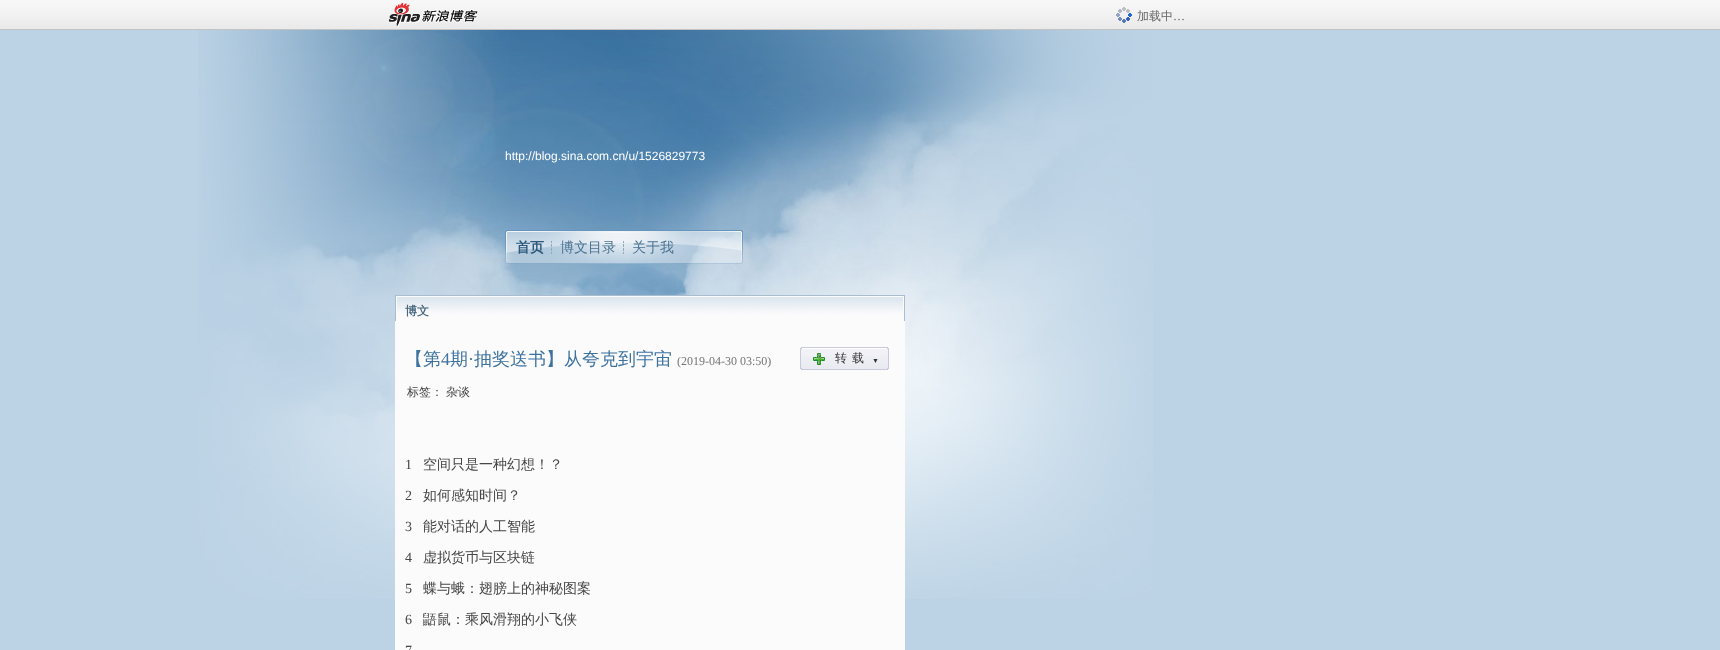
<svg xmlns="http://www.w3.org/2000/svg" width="1720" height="650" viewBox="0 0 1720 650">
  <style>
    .t1 { font: 500 12px WenQuanYi Zen Hei; fill: #666; }
    .t2 { font: 12px Liberation Serif; fill: #666; }
    .t3 { font: 12px Liberation Sans; fill: #fff; }
    .t4 { font: bold 14px WenQuanYi Zen Hei; fill: #2c597c; }
    .t5 { font: 500 14px WenQuanYi Zen Hei; fill: #4b7290; }
    .t6 { font: bold 12px WenQuanYi Zen Hei; fill: #49687f; }
    .t7 { font: 500 18px WenQuanYi Zen Hei; fill: #3e73a0; }
    .t8 { font: 18px Liberation Serif; fill: #3e73a0; }
    .t9 { font: 12px Liberation Serif; fill: #747474; }
    .t10 { font: 500 12px WenQuanYi Zen Hei; letter-spacing: 5px; fill: #333; }
    .t11 { font: 7px Liberation Sans; letter-spacing: 5px; fill: #333; }
    .t12 { font: 500 12px WenQuanYi Zen Hei; fill: #464646; }
    .t13 { font: 14px Liberation Serif; fill: #464646; }
    .t14 { font: 500 14px WenQuanYi Zen Hei; fill: #464646; }
  </style>
  <rect width="100%" height="100%" fill="#bcd3e5"/>
  <image x="0" y="0" width="1720" height="30" href="images/1.png"/>
  <image x="389" y="3" width="89" height="24" href="images/2.png"/>
  <image x="1116" y="7" width="16" height="16" href="images/3.png"/>
  <text x="1137" y="20" class="t1">加载中</text>
  <text x="1173" y="20" class="t2">…</text>
  <image x="198" y="30" width="955" height="569" href="images/4.png"/>
  <text x="505" y="160" class="t3">http://blog.sina.com.cn/u/1526829773</text>
  <image x="505" y="230" width="238" height="34" href="images/5.png"/>
  <image x="551" y="241" width="1" height="13" href="images/6.png"/>
  <text x="516" y="252" class="t4">首页</text>
  <image x="623" y="241" width="1" height="13" href="images/7.png"/>
  <text x="560" y="252" class="t5">博文目录</text>
  <text x="632" y="252" class="t5">关于我</text>
  <image x="395" y="295" width="510" height="26" href="images/8.png"/>
  <text x="405" y="315" class="t6">博文</text>
  <rect x="395" y="321" width="510" height="329" fill="#fbfbfc"/>
  <text x="405" y="365" class="t7">【第</text>
  <text x="441" y="365" class="t8">4</text>
  <text x="450" y="365" class="t7">期</text>
  <text x="468" y="365" class="t8">·</text>
  <text x="474" y="365" class="t7">抽奖送书】从夸克到宇宙</text>
  <text x="677" y="365" class="t9">(2019-04-30 03:50)</text>
  <image x="800" y="347" width="5" height="23" href="images/9.png"/>
  <image x="805" y="347" width="84" height="23" href="images/10.png"/>
  <image x="813" y="353" width="12" height="12" href="images/11.png"/>
  <text x="835" y="362" class="t10">转载</text>
  <text x="872" y="363" class="t11">▼</text>
  <text x="407" y="396" class="t12">标签：</text>
  <text x="446" y="396" class="t12">杂谈</text>
  <text x="405" y="469" class="t13">1</text>
  <text x="423" y="469" class="t14">空间只是一种幻想！？</text>
  <text x="405" y="500" class="t13">2</text>
  <text x="423" y="500" class="t14">如何感知时间？</text>
  <text x="405" y="531" class="t13">3</text>
  <text x="423" y="531" class="t14">能对话的人工智能</text>
  <text x="405" y="562" class="t13">4</text>
  <text x="423" y="562" class="t14">虚拟货币与区块链</text>
  <text x="405" y="593" class="t13">5</text>
  <text x="423" y="593" class="t14">蝶与蛾：翅膀上的神秘图案</text>
  <text x="405" y="624" class="t13">6</text>
  <text x="423" y="624" class="t14">鼯鼠：乘风滑翔的小飞侠</text>
  <text x="405" y="655" class="t13">7</text>
</svg>
